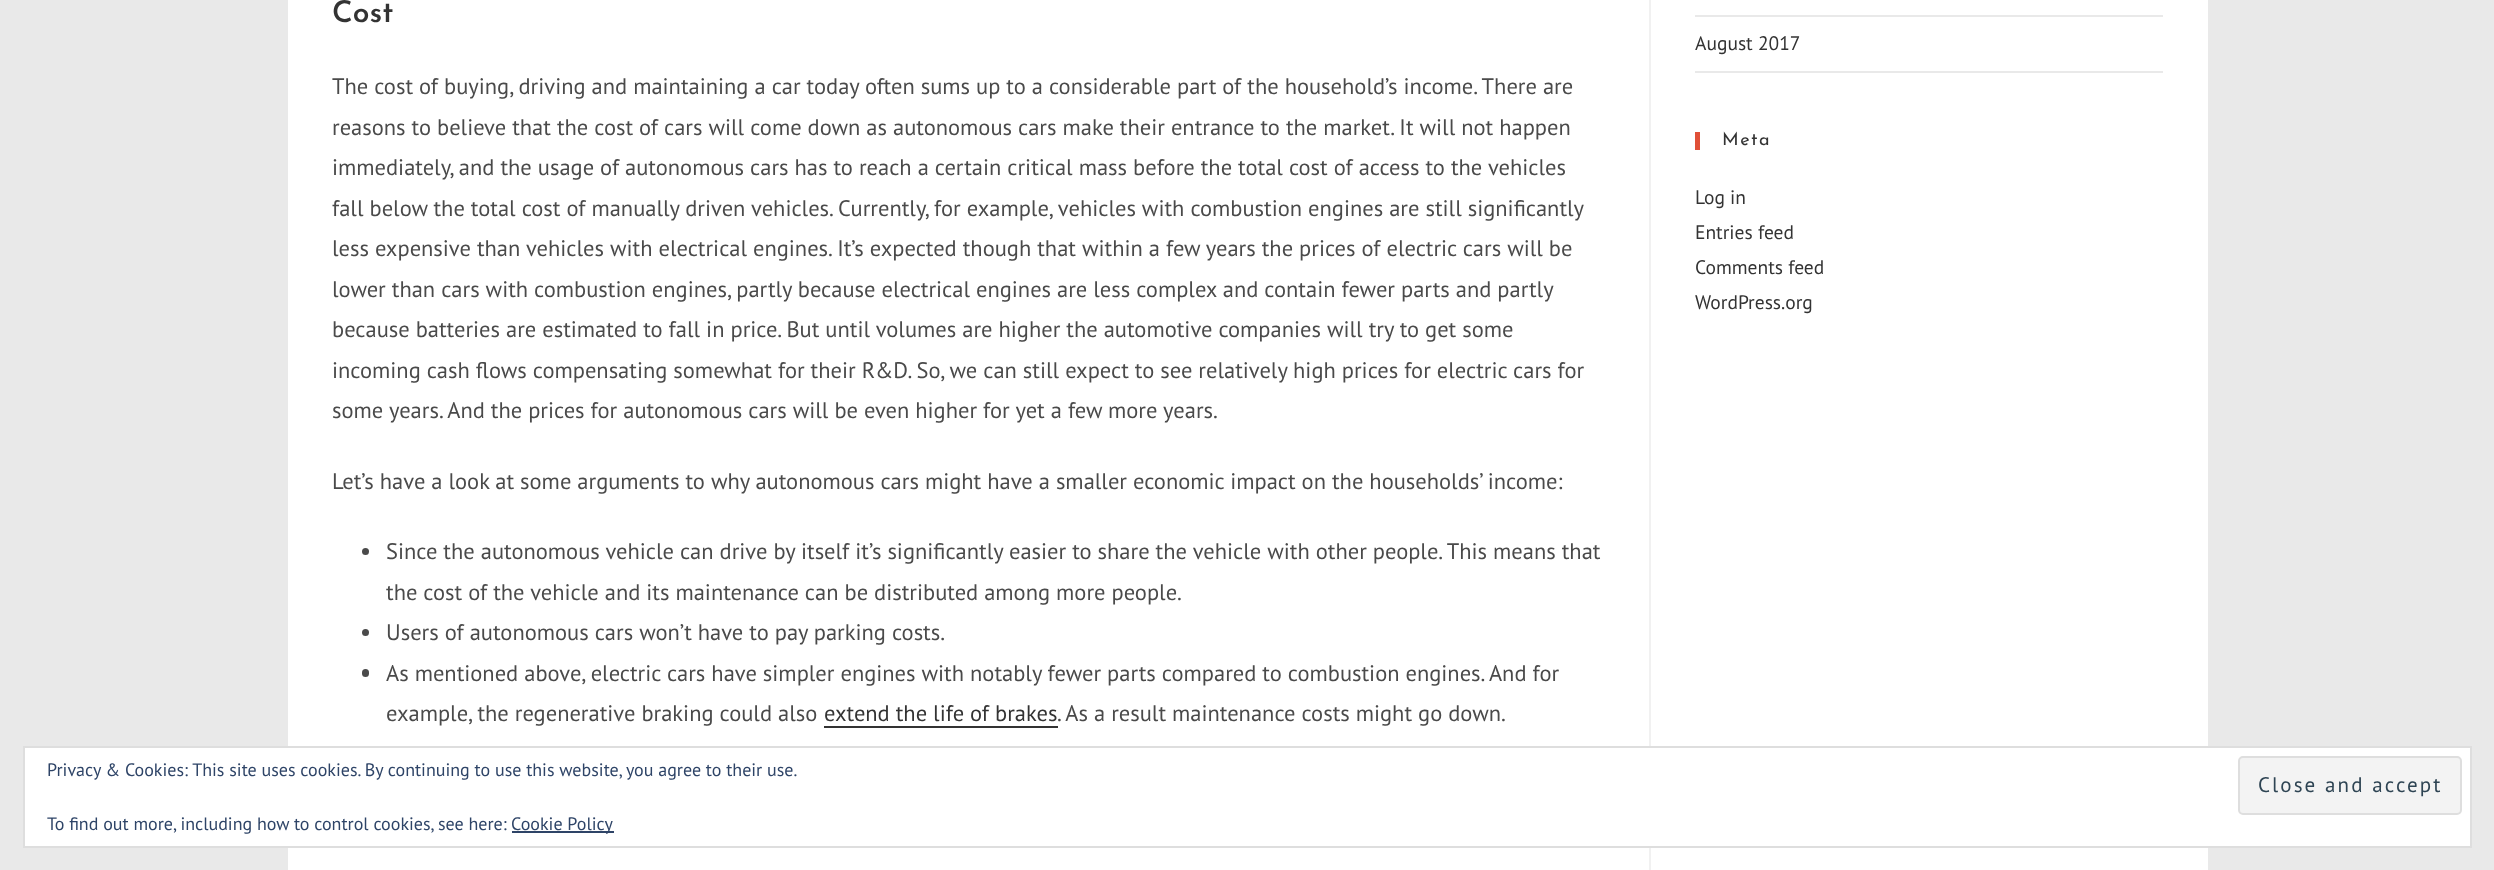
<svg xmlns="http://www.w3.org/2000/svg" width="2494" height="870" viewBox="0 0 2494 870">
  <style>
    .t1 { font: 600 30px Josefin Sans; fill: #333; }
    .t2 { font: 22.5px PT Sans; fill: #4a4a4a; }
    .t3 { font: 22.5px PT Sans; fill: #333; }
    .t4 { font: 19.5px PT Sans; fill: #333; }
    .t5 { font: 18px Josefin Sans; letter-spacing: 1.5px; fill: #333; }
    .t6 { font: 18px PT Sans; fill: #2e4467; }
    .t7 { font: 21px PT Sans; letter-spacing: 2.1px; fill: #2e4453; }
  </style>
  <rect width="100%" height="100%" fill="#e9e9e9"/>
  <rect x="288" y="0" width="1920" height="870" fill="#fff"/>
  <rect x="1649" y="0" width="2" height="870" fill="#f1f1f1"/>
  <text x="332" y="22" class="t1">Cost</text>
  <text x="332" y="94" class="t2">The cost of buying, driving and maintaining a car today often sums up to a considerable part of the household’s income. There are</text>
  <text x="332" y="135" class="t2">reasons to believe that the cost of cars will come down as autonomous cars make their entrance to the market. It will not happen</text>
  <text x="332" y="175" class="t2">immediately, and the usage of autonomous cars has to reach a certain critical mass before the total cost of access to the vehicles</text>
  <text x="332" y="216" class="t2">fall below the total cost of manually driven vehicles. Currently, for example, vehicles with combustion engines are still significantly</text>
  <text x="332" y="256" class="t2">less expensive than vehicles with electrical engines. It’s expected though that within a few years the prices of electric cars will be</text>
  <text x="332" y="297" class="t2">lower than cars with combustion engines, partly because electrical engines are less complex and contain fewer parts and partly</text>
  <text x="332" y="337" class="t2">because batteries are estimated to fall in price. But until volumes are higher the automotive companies will try to get some</text>
  <text x="332" y="378" class="t2">incoming cash flows compensating somewhat for their R&amp;D. So, we can still expect to see relatively high prices for electric cars for</text>
  <text x="332" y="418" class="t2">some years. And the prices for autonomous cars will be even higher for yet a few more years.</text>
  <text x="332" y="489" class="t2">Let’s have a look at some arguments to why autonomous cars might have a smaller economic impact on the households’ income:</text>
  <circle cx="365.5" cy="551.5" r="3.5" fill="#4a4a4a"/>
  <text x="386" y="559" class="t2">Since the autonomous vehicle can drive by itself it’s significantly easier to share the vehicle with other people. This means that</text>
  <text x="386" y="600" class="t2">the cost of the vehicle and its maintenance can be distributed among more people.</text>
  <circle cx="365.5" cy="632.5" r="3.5" fill="#4a4a4a"/>
  <text x="386" y="640" class="t2">Users of autonomous cars won’t have to pay parking costs.</text>
  <rect x="362" y="669" width="7" height="8" rx="3.5" fill="#4a4a4a"/>
  <text x="386" y="681" class="t2">As mentioned above, electric cars have simpler engines with notably fewer parts compared to combustion engines. And for</text>
  <text x="386" y="721" class="t2">example, the regenerative braking could also</text>
  <text x="824" y="721" class="t3">extend the life of brakes</text>
  <rect x="824" y="726" width="234" height="2" fill="#333"/>
  <text x="1057" y="721" class="t2">. As a result maintenance costs might go down.</text>
  <rect x="1695" y="15" width="468" height="2" fill="#e9e9e9"/>
  <rect x="1695" y="71" width="468" height="2" fill="#e9e9e9"/>
  <text x="1695" y="50" class="t4">August 2017</text>
  <rect x="1695" y="132" width="5" height="18" fill="#e05038"/>
  <text x="1722" y="145" class="t5">Meta</text>
  <text x="1695" y="204" class="t4">Log in</text>
  <text x="1695" y="239" class="t4">Entries feed</text>
  <text x="1695" y="274" class="t4">Comments feed</text>
  <text x="1695" y="309" class="t4">WordPress.org</text>
  <rect x="24" y="747" width="2447" height="100" fill="#fff" stroke="#dedede" stroke-width="2"/>
  <text x="47" y="776" class="t6">Privacy &amp; Cookies: This site uses cookies. By continuing to use this website, you agree to their use.</text>
  <rect x="2239" y="757" width="222" height="57" rx="4" fill="#f3f3f3" stroke="#dedede" stroke-width="2"/>
  <text x="2258" y="792" class="t7">Close and accept</text>
  <text x="47" y="830" class="t6">To find out more, including how to control cookies, see here:</text>
  <rect x="512" y="831" width="102" height="2" fill="#2e4467"/>
  <text x="511" y="830" class="t6">Cookie Policy</text>
</svg>
